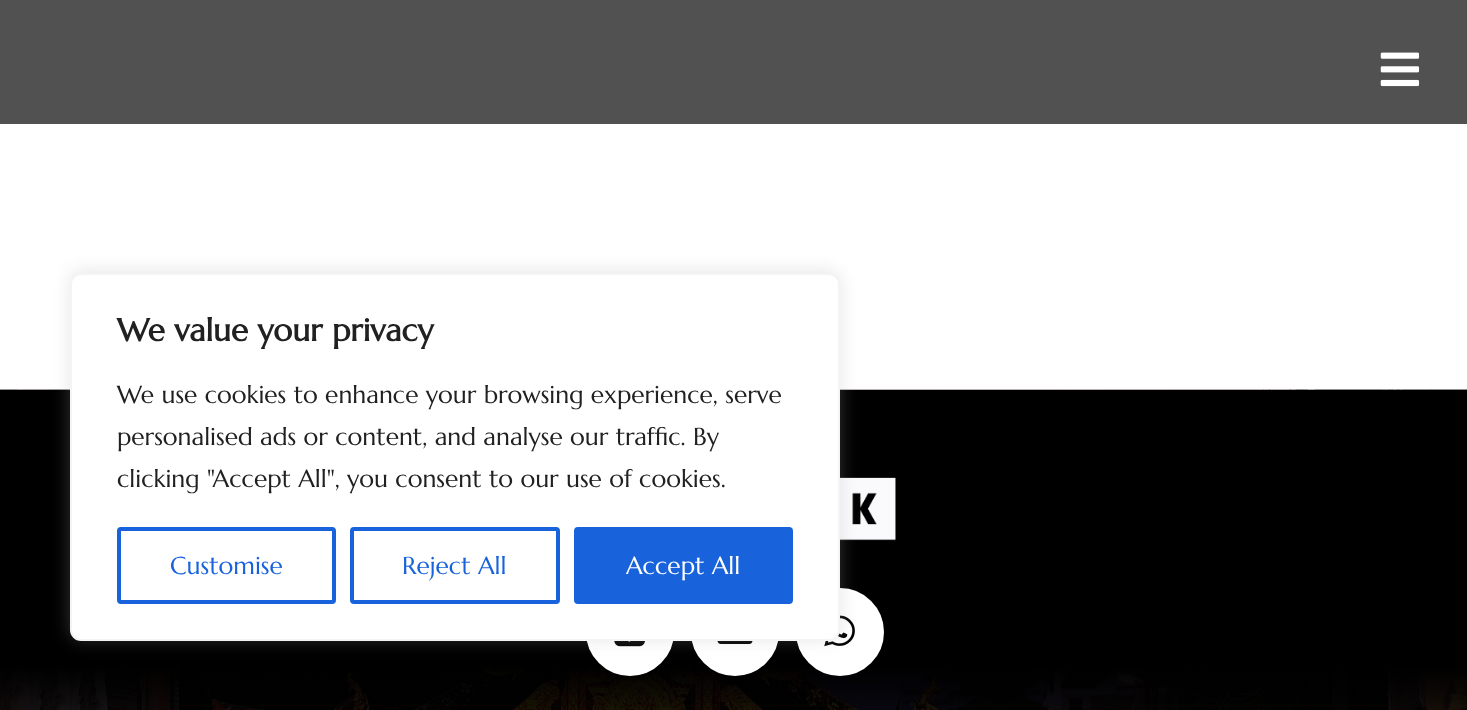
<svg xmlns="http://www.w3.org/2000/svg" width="1467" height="710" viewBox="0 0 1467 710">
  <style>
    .t1 { font: bold 31.5px Marcellus; fill: #212121; }
    .t2 { font: 24.5px Marcellus; fill: #212121; }
    .t3 { font: 24.5px Marcellus; fill: #1863dc; }
    .t4 { font: 24.5px Marcellus; fill: #fff; }
  </style>
  <rect width="100%" height="100%" fill="#fff"/>
  <rect x="0" y="0" width="1467" height="124" fill="#515151"/>
  <image x="1380" y="52" width="40" height="35" href="images/1.png"/>
  <image x="0" y="389" width="1467" height="321" href="images/2.png"/>
  <image x="840" y="477" width="56" height="64" href="images/3.png"/>
  <circle cx="630" cy="632" r="35" fill="#fff" stroke="#fff" stroke-width="18"/>
  <image x="614" y="641" width="31" height="6" href="images/4.png"/>
  <circle cx="735" cy="632" r="35" fill="#fff" stroke="#fff" stroke-width="18"/>
  <image x="717" y="641" width="36" height="3" href="images/5.png"/>
  <circle cx="840" cy="632" r="35" fill="#fff" stroke="#fff" stroke-width="18"/>
  <image x="824" y="615" width="31" height="32" href="images/6.png"/>
  <rect x="70" y="271" width="770" height="368" rx="11" fill="#acabab4d" filter="blur(9px)"/>
  <rect x="71" y="274" width="768" height="366" rx="10" fill="#fff" stroke="#f4f4f4" stroke-width="2"/>
  <text x="117" y="341" class="t1">We value your privacy</text>
  <text x="117" y="403" class="t2">We use cookies to enhance your browsing experience, serve</text>
  <text x="117" y="445" class="t2">personalised ads or content, and analyse our traffic. By</text>
  <text x="117" y="487" class="t2">clicking "Accept All", you consent to our use of cookies.</text>
  <rect x="119" y="529" width="215" height="73" rx="2" fill="none" stroke="#1863dc" stroke-width="4"/>
  <text x="170" y="574" class="t3">Customise</text>
  <rect x="352" y="529" width="206" height="73" rx="2" fill="none" stroke="#1863dc" stroke-width="4"/>
  <text x="402" y="574" class="t3">Reject All</text>
  <rect x="576" y="529" width="215" height="73" rx="2" fill="#1863dc" stroke="#1863dc" stroke-width="4"/>
  <text x="626" y="574" class="t4">Accept All</text>
</svg>
